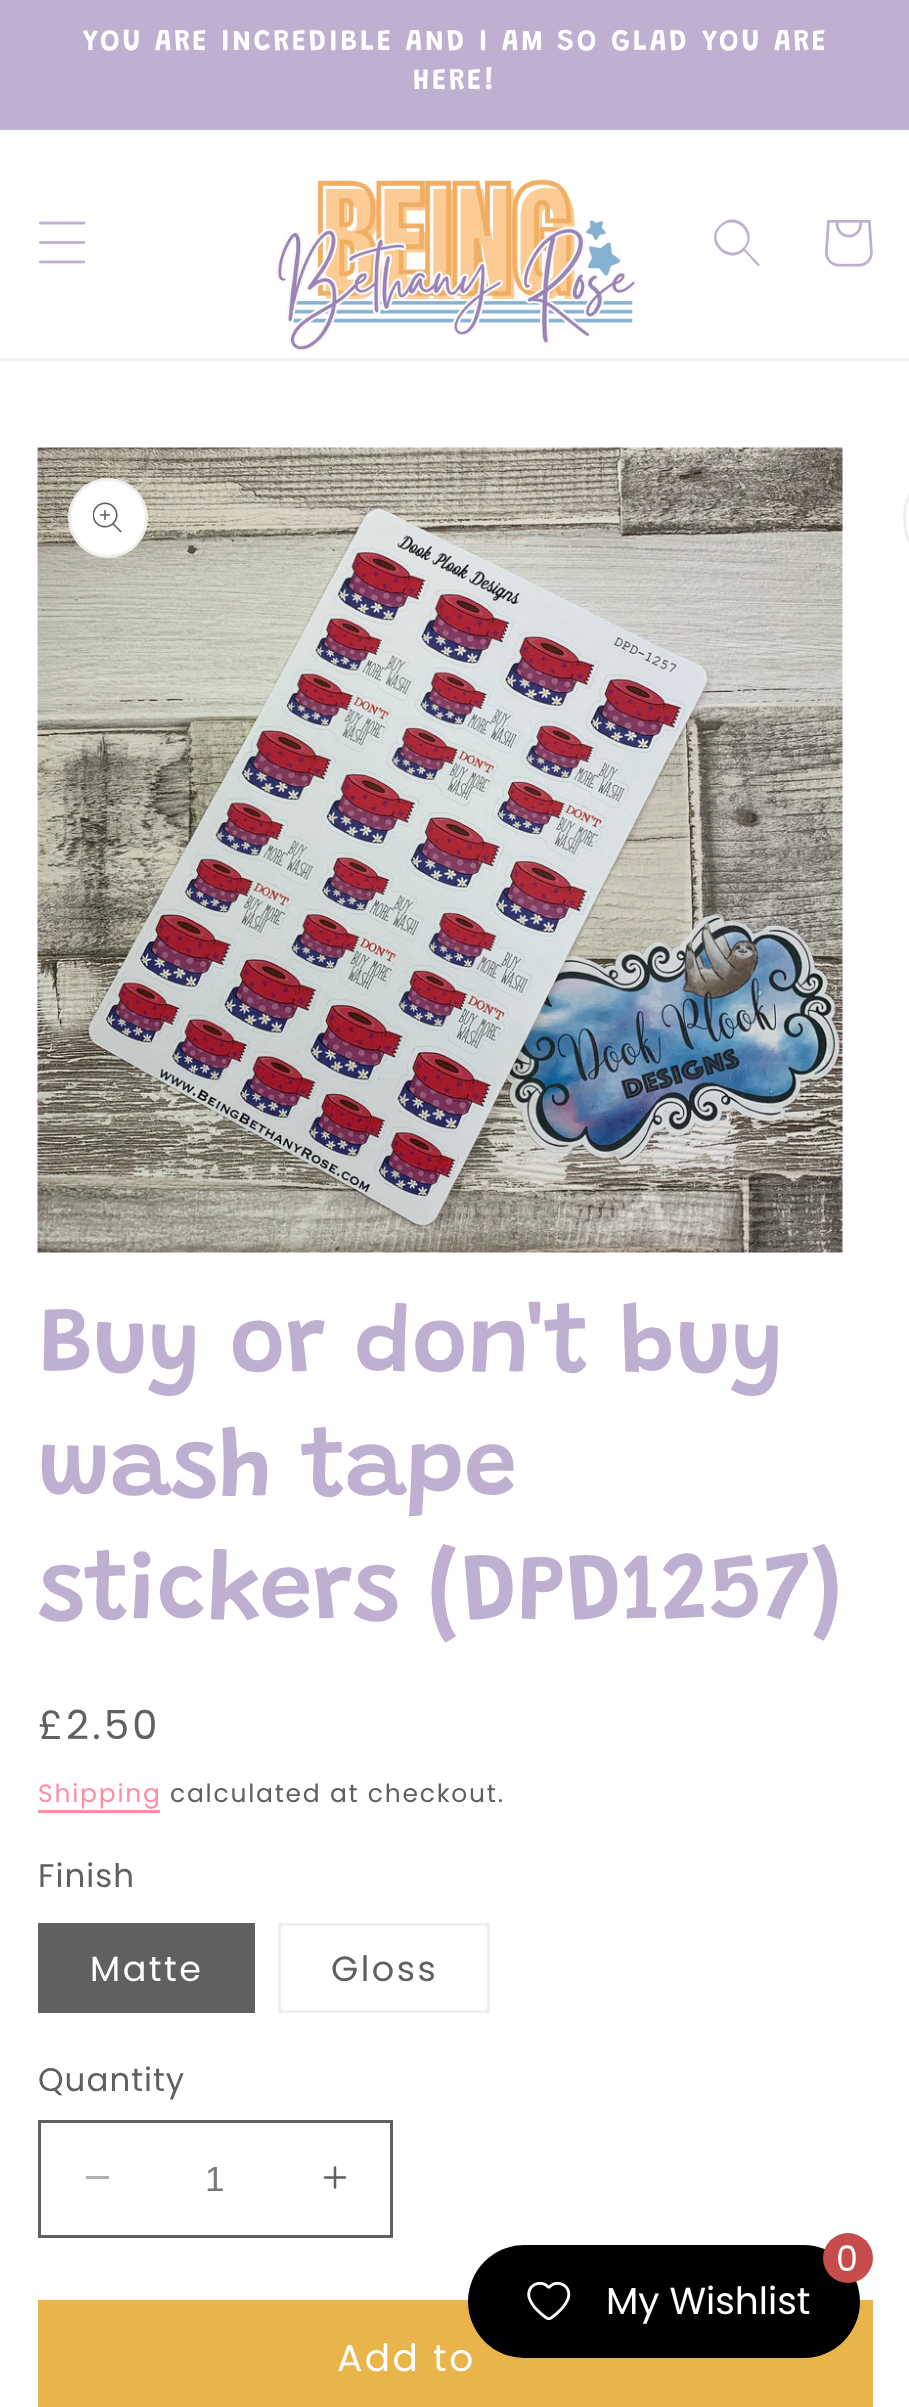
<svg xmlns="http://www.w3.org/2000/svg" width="909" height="2407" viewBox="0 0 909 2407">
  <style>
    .t1 { font: 600 30px Grandstander; letter-spacing: 2.5px; fill: #fff; }
    .t2 { font: 600 95px Grandstander; fill: #bfb0d1; }
    .t3 { font: 40px Poppins; letter-spacing: 3.25px; fill: #606060; }
    .t4 { font: 25px Poppins; letter-spacing: 1.75px; fill: #fe8ea2; }
    .t5 { font: 25px Poppins; letter-spacing: 1.75px; fill: #606060; }
    .t6 { font: 32.5px Poppins; letter-spacing: 1px; fill: #606060; }
    .t7 { font: 35px Poppins; letter-spacing: 2.5px; fill: #fff; }
    .t8 { font: 35px Poppins; letter-spacing: 2.5px; fill: #606060; }
    .t9 { font: 35px Liberation Sans; fill: #787878; }
    .t10 { font: 37.5px Poppins; letter-spacing: 2.5px; fill: #fff; }
    .t11 { font: 35px Poppins; fill: #fff; }
    .t12 { font: 37.5px Poppins; fill: #fff; }
  </style>
  <rect width="100%" height="100%" fill="#fff"/>
  <rect x="0" y="0" width="909" height="128" fill="#bfb0d1"/>
  <rect x="0" y="128" width="909" height="2" fill="#c4b6d5"/>
  <text x="82" y="50" class="t1">YOU ARE INCREDIBLE AND I AM SO GLAD YOU ARE</text>
  <text x="413" y="89" class="t1">HERE!</text>
  <rect x="0" y="358" width="909" height="3" fill="#f2f2f2"/>
  <image x="38" y="221" width="48" height="43" href="images/1.png"/>
  <image x="276" y="179" width="361" height="173" href="images/2.png"/>
  <path d="M743 248C729 262 707 241 721 227C735 213 757 234 743 248ZM744 251C726 266 703 240 720 225C736 209 760 232 745 249L760 265L759 266C758 267 746 253 744 251Z" fill="#bfb0d1" fill-rule="evenodd"/>
  <image x="825" y="219" width="48" height="48" href="images/3.png"/>
  <image x="37" y="447" width="806" height="806" href="images/4.png"/>
  <circle cx="108" cy="518" r="40" fill="#fff"/>
  <circle cx="108" cy="518" r="38.5" fill="none" stroke="#6060601a" stroke-width="3"/>
  <image x="93" y="502" width="29" height="31" href="images/5.png"/>
  <rect x="904.5" y="479.5" width="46" height="77" rx="38.5" fill="none" stroke="#efefef" stroke-width="3"/>
  <text x="38" y="1371" class="t2">Buy or don't buy</text>
  <text x="38" y="1495" class="t2">wash tape</text>
  <text x="38" y="1618" class="t2">stickers (DPD1257)</text>
  <text x="38" y="1739" class="t3">£2.50</text>
  <text x="38" y="1802" class="t4">Shipping</text>
  <rect x="38" y="1810" width="122" height="3" fill="#fe8ea2"/>
  <text x="170" y="1802" class="t5">calculated at checkout.</text>
  <text x="38" y="1887" class="t6">Finish</text>
  <rect x="38" y="1923" width="217" height="90" fill="#606060"/>
  <text x="90" y="1981" class="t7">Matte</text>
  <rect x="279.5" y="1924.5" width="209" height="87" fill="none" stroke="#efefef" stroke-width="3"/>
  <text x="331" y="1981" class="t8">Gloss</text>
  <text x="38" y="2091" class="t6">Quantity</text>
  <rect x="86" y="2176" width="23" height="3" fill="#b0b0b0"/>
  <image x="323" y="2166" width="24" height="23" href="images/6.png"/>
  <rect x="39.5" y="2121.5" width="352" height="115" fill="none" stroke="#606060" stroke-width="3"/>
  <text x="205" y="2191" class="t9">1</text>
  <rect x="38" y="2300" width="835" height="107" fill="#e9b44a"/>
  <text x="337" y="2371" class="t10">Add to</text>
  <rect x="468" y="2245" width="392" height="113" rx="56.5" fill="#000"/>
  <circle cx="848" cy="2258" r="25" fill="#c74d4d"/>
  <text x="836" y="2271" class="t11">0</text>
  <image x="527" y="2281" width="44" height="40" href="images/7.png"/>
  <text x="606" y="2314" class="t12">My Wishlist</text>
</svg>
